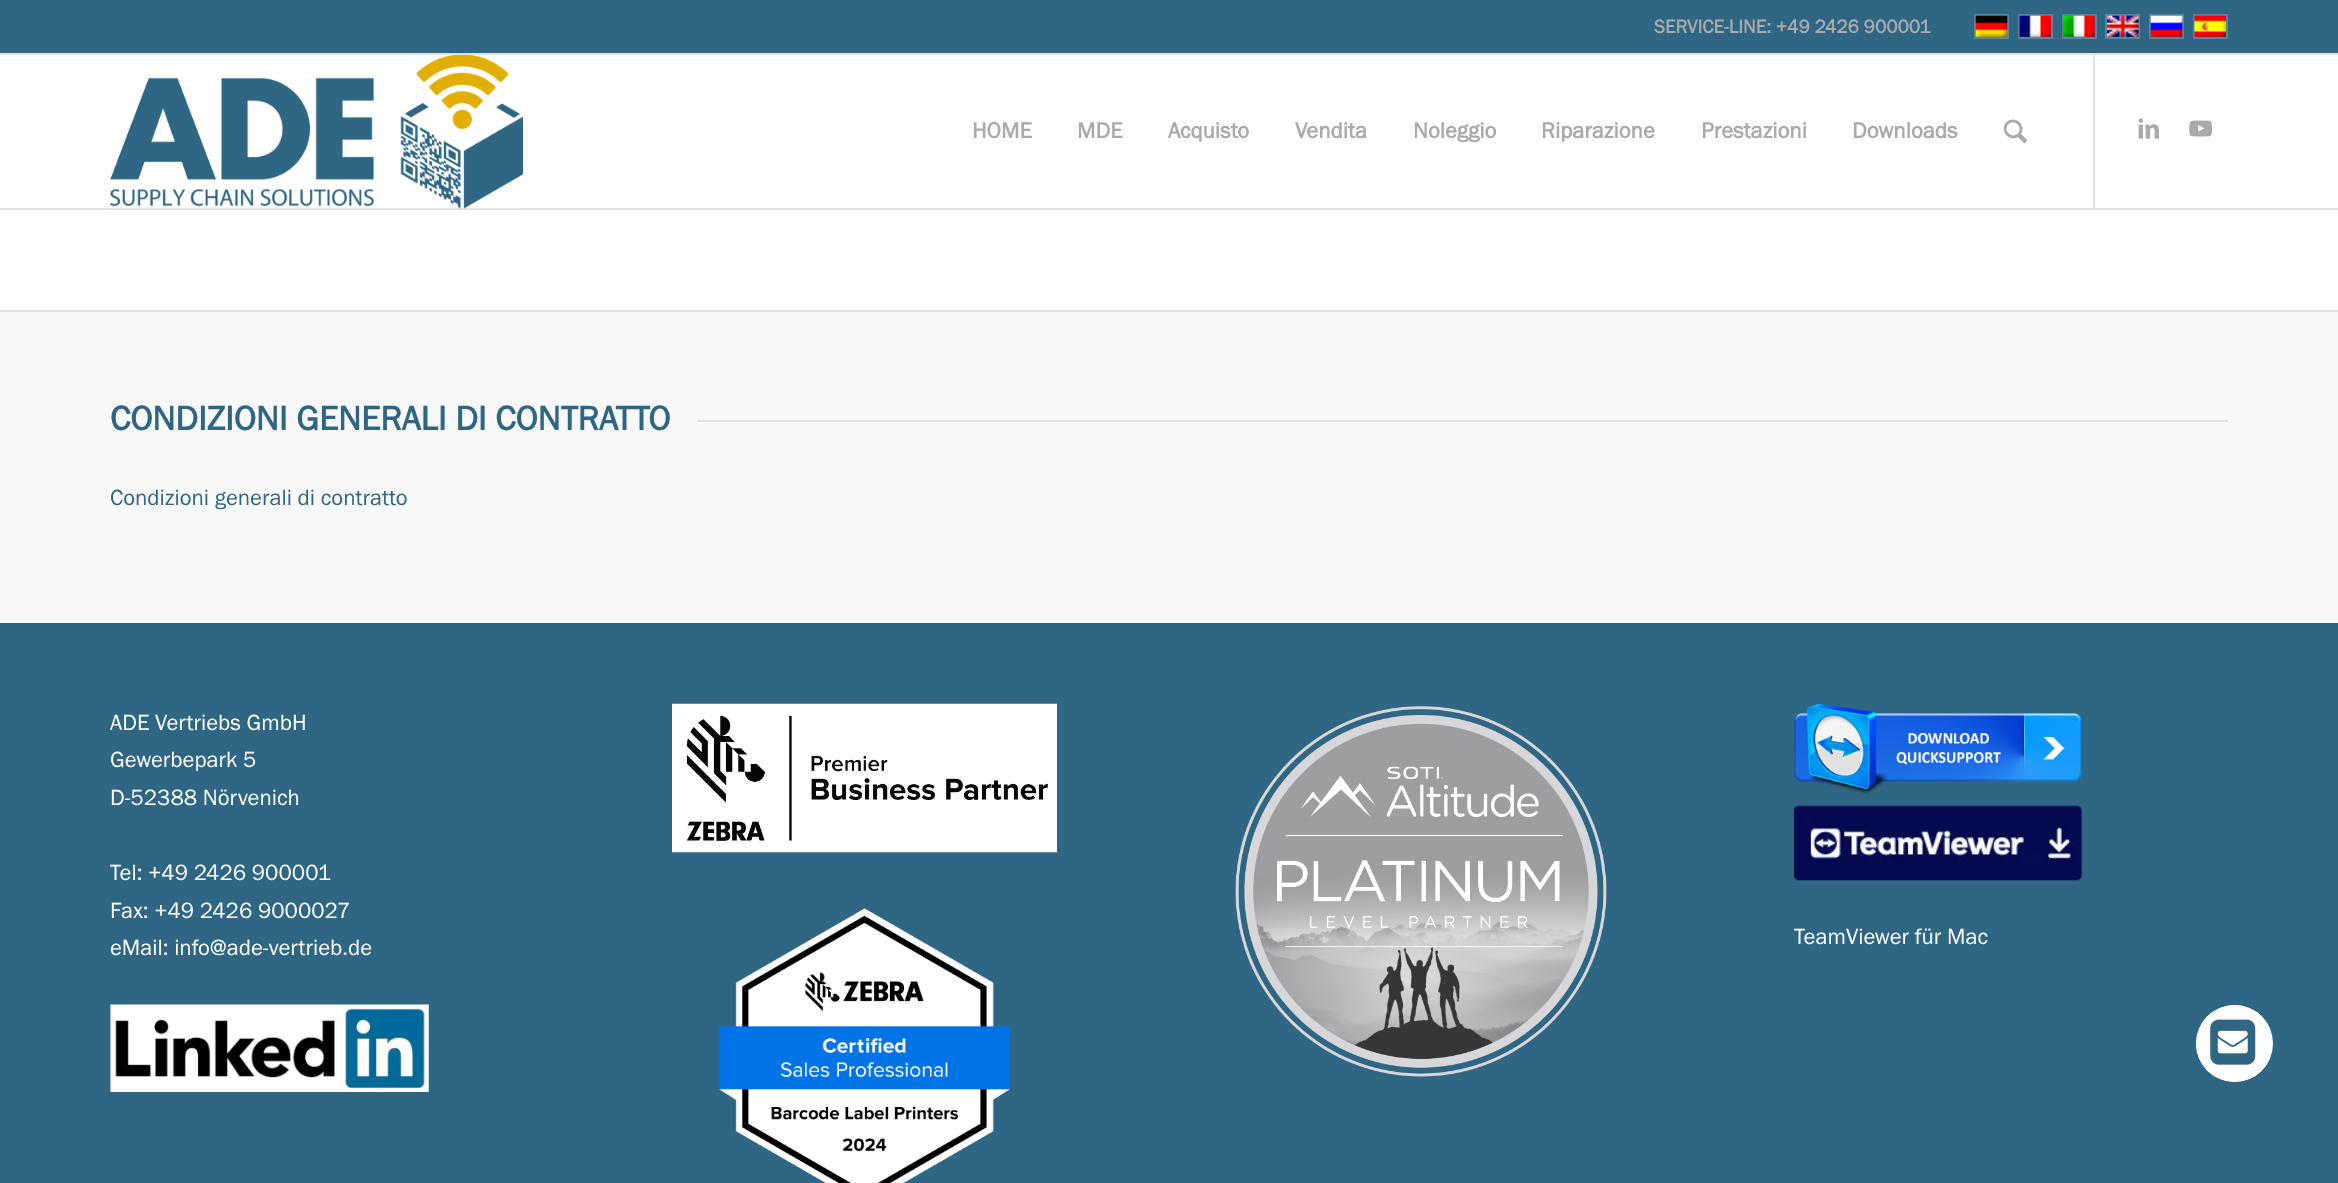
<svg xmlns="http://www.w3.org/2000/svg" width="2338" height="1183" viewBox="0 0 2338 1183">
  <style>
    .t1 { font: bold 19.25px Franklin Gothic; fill: #aaa; }
    .t2 { font: bold 22.75px Franklin Gothic; fill: #aaa; }
    .t3 { font: bold 35px Franklin Gothic; fill: #2e6684; }
    .t4 { font: 22.75px Franklin Gothic; fill: #2e6684; }
    .t5 { font: 22.75px Franklin Gothic; fill: #fff; }
  </style>
  <defs>
    <clipPath id="clip1"><rect x="2196" y="1005" width="77" height="77" rx="38.5"/></clipPath>
  </defs>
  <rect width="100%" height="100%" fill="#fff"/>
  <rect x="0" y="0" width="2338" height="53" fill="#2e6684"/>
  <rect x="2093" y="54" width="2" height="154" fill="#e1e1e1"/>
  <rect x="0" y="53" width="2338" height="2" fill="#e1e1e1"/>
  <text x="1654" y="33" class="t1">SERVICE-LINE: +49 2426 900001</text>
  <rect x="1975" y="15" width="33" height="23" fill="none" stroke="#58859d" stroke-width="2"/>
  <image x="1975" y="15" width="33" height="22" href="images/1.png"/>
  <rect x="2019" y="15" width="33" height="23" fill="none" stroke="#58859d" stroke-width="2"/>
  <image x="2019" y="15" width="32" height="22" href="images/2.png"/>
  <rect x="2063" y="15" width="33" height="23" fill="none" stroke="#58859d" stroke-width="2"/>
  <image x="2063" y="15" width="32" height="22" href="images/3.png"/>
  <rect x="2106" y="15" width="33" height="23" fill="none" stroke="#58859d" stroke-width="2"/>
  <image x="2107" y="15" width="32" height="22" href="images/4.png"/>
  <rect x="2150" y="15" width="33" height="23" fill="none" stroke="#58859d" stroke-width="2"/>
  <image x="2150" y="15" width="33" height="22" href="images/5.png"/>
  <rect x="2194" y="15" width="33" height="23" fill="none" stroke="#58859d" stroke-width="2"/>
  <image x="2194" y="15" width="32" height="22" href="images/6.png"/>
  <rect x="0" y="208" width="2338" height="2" fill="#e1e1e1"/>
  <image x="110" y="55" width="413" height="154" href="images/7.png"/>
  <text x="972" y="138" class="t2">HOME</text>
  <text x="1077" y="138" class="t2">MDE</text>
  <text x="1168" y="138" class="t2">Acquisto</text>
  <text x="1295" y="138" class="t2">Vendita</text>
  <text x="1413" y="138" class="t2">Noleggio</text>
  <text x="1541" y="138" class="t2">Riparazione</text>
  <text x="1701" y="138" class="t2">Prestazioni</text>
  <text x="1852" y="138" class="t2">Downloads</text>
  <image x="2003" y="119" width="25" height="25" href="images/8.png"/>
  <image x="2138" y="118" width="21" height="21" href="images/9.png"/>
  <image x="2189" y="120" width="23" height="17" href="images/10.png"/>
  <rect x="0" y="312" width="2338" height="311" fill="#f8f8f8"/>
  <rect x="0" y="310" width="2338" height="2" fill="#e1e1e1"/>
  <text x="110" y="430" class="t3">CONDIZIONI GENERALI DI CONTRATTO</text>
  <rect x="697" y="420" width="1531" height="2" fill="#e2e2e2"/>
  <text x="110" y="505" class="t4">Condizioni generali di contratto</text>
  <rect x="0" y="623" width="2338" height="560" fill="#2e6684"/>
  <text x="110" y="730" class="t5">ADE Vertriebs GmbH</text>
  <text x="110" y="767" class="t5">Gewerbepark 5</text>
  <text x="110" y="805" class="t5">D-52388 Nörvenich</text>
  <text x="110" y="880" class="t5">Tel: +49 2426 900001</text>
  <text x="110" y="918" class="t5">Fax: +49 2426 9000027</text>
  <text x="110" y="955" class="t5">eMail: info@ade-vertrieb.de</text>
  <image x="110" y="1004" width="319" height="88" href="images/11.png"/>
  <image x="672" y="703" width="385" height="150" href="images/12.png"/>
  <image x="719" y="908" width="291" height="275" href="images/13.png"/>
  <image x="1235" y="706" width="372" height="371" href="images/14.png"/>
  <image x="1794" y="703" width="288" height="91" href="images/15.png"/>
  <image x="1793" y="805" width="290" height="76" href="images/16.png"/>
  <text x="1794" y="944" class="t5">TeamViewer für Mac</text>
  <circle cx="2234.5" cy="1043.5" r="38.5" fill="#fff"/>
  <g clip-path="url(#clip1)">
    <path d="M2234.5 1005H2270V1082H2234.5C2213 1082 2196 1065 2196 1043.5C2196 1022 2213 1005 2234.5 1005Z" fill="#fff"/>
  </g>
  <image x="2210" y="1019" width="46" height="46" href="images/17.png"/>
</svg>
